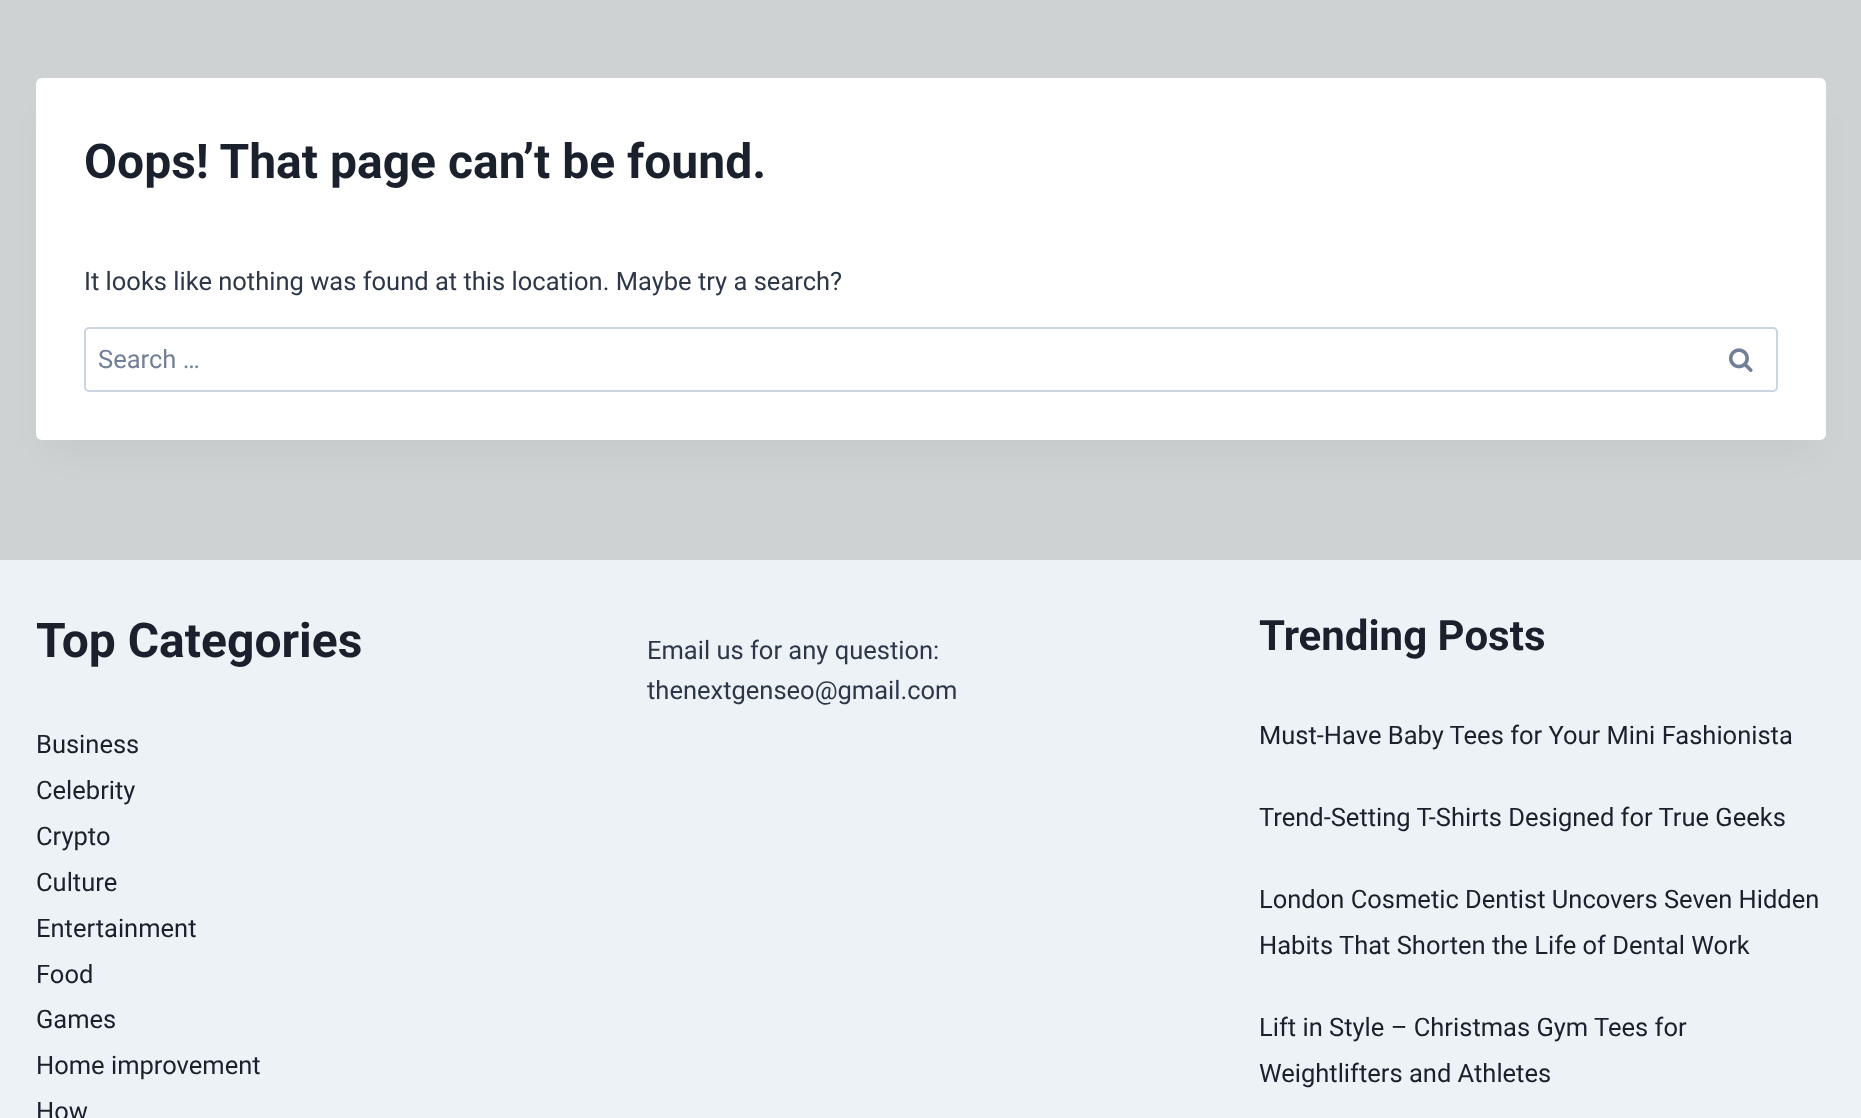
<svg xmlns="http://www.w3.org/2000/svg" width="1861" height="1118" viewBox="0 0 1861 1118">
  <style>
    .t1 { font: bold 48px Roboto; fill: #1a202c; }
    .t2 { font: 25.5px Roboto; fill: #2d3748; }
    .t3 { font: 25.5px Roboto; fill: #718096; }
    .t4 { font: 25.5px Roboto; fill: #1a202c; }
    .t5 { font: bold 42px Roboto; fill: #1a202c; }
  </style>
  <rect width="100%" height="100%" fill="#ced2d2"/>
  <rect x="51" y="116" width="1760" height="331" fill="#0000000d" filter="blur(19px)"/>
  <rect x="36" y="78" width="1790" height="362" rx="6" fill="#fff"/>
  <text x="84" y="178" class="t1">Oops! That page can’t be found.</text>
  <text x="84" y="290" class="t2">It looks like nothing was found at this location. Maybe try a search?</text>
  <rect x="85" y="328" width="1692" height="63" rx="4" fill="none" stroke="#cbd5e0" stroke-width="2"/>
  <text x="98" y="368" class="t3">Search …</text>
  <image x="1728" y="348" width="25" height="24" href="images/1.png"/>
  <rect x="0" y="560" width="1861" height="558" fill="#edf2f7"/>
  <text x="36" y="657" class="t1">Top Categories</text>
  <text x="36" y="753" class="t4">Business</text>
  <text x="36" y="799" class="t4">Celebrity</text>
  <text x="36" y="845" class="t4">Crypto</text>
  <text x="36" y="891" class="t4">Culture</text>
  <text x="36" y="937" class="t4">Entertainment</text>
  <text x="36" y="983" class="t4">Food</text>
  <text x="36" y="1028" class="t4">Games</text>
  <text x="36" y="1074" class="t4">Home improvement</text>
  <text x="36" y="1120" class="t4">How</text>
  <text x="647" y="659" class="t2">Email us for any question:</text>
  <text x="647" y="699" class="t2">thenextgenseo@gmail.com</text>
  <text x="1259" y="650" class="t5">Trending Posts</text>
  <text x="1259" y="744" class="t4">Must-Have Baby Tees for Your Mini Fashionista</text>
  <text x="1259" y="826" class="t4">Trend-Setting T-Shirts Designed for True Geeks</text>
  <text x="1259" y="908" class="t4">London Cosmetic Dentist Uncovers Seven Hidden</text>
  <text x="1259" y="954" class="t4">Habits That Shorten the Life of Dental Work</text>
  <text x="1259" y="1036" class="t4">Lift in Style – Christmas Gym Tees for</text>
  <text x="1259" y="1082" class="t4">Weightlifters and Athletes</text>
</svg>
